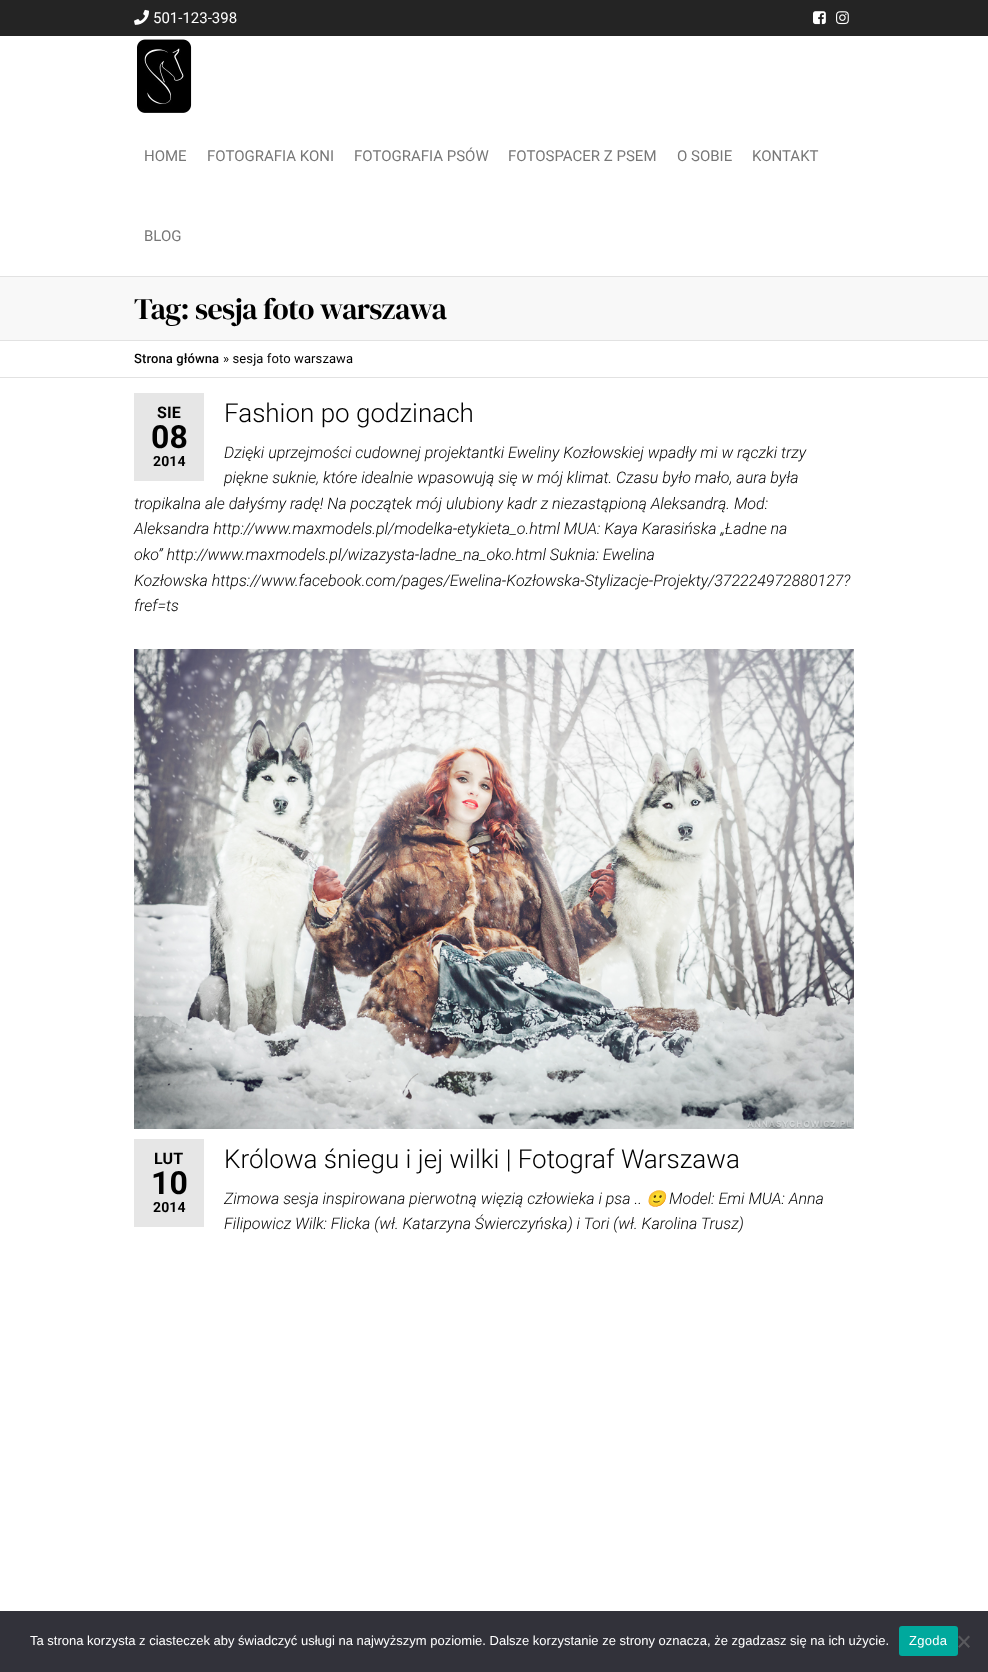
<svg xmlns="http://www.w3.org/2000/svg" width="988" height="1672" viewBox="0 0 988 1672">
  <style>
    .t1 { font: 15px Roboto; fill: #fff; }
    .t2 { font: 15px Roboto; fill: #777; }
    .t3 { font: 30px DM Serif Display; letter-spacing: -0.6px; fill: #000; }
    .t4 { font: 500 13px Roboto; letter-spacing: 0.1px; fill: #000; }
    .t5 { font: 13px Roboto; letter-spacing: 0.1px; fill: #000; }
    .t6 { font: bold 16px Roboto; letter-spacing: 0.1px; fill: #000; }
    .t7 { font: bold 32px Roboto; letter-spacing: 0.1px; fill: #000; }
    .t8 { font: bold 14px Roboto; letter-spacing: 0.1px; fill: #000; }
    .t9 { font: 300 26px Roboto; fill: #000; }
    .t10 { font: italic 300 16px Roboto; fill: #000; }
    .t11 { font: italic 16px Noto Color Emoji; fill: #000; }
    .t12 { font: 13px Liberation Sans; fill: #fff; }
    .t13 { font: 13px Liberation Sans; letter-spacing: 0.25px; fill: #fff; }
  </style>
  <rect width="100%" height="100%" fill="#fff"/>
  <rect x="0" y="0" width="988" height="36" fill="#242424"/>
  <image x="134" y="9" width="15" height="16" href="images/1.png"/>
  <text x="153" y="23" class="t1">501-123-398</text>
  <image x="813" y="11" width="13" height="14" href="images/2.png"/>
  <image x="836" y="11" width="13" height="14" href="images/3.png"/>
  <rect x="0" y="276" width="988" height="1" fill="#e2e2e2"/>
  <image x="137" y="39" width="55" height="74" href="images/4.png"/>
  <text x="144" y="161" class="t2">HOME</text>
  <text x="207" y="161" class="t2">FOTOGRAFIA KONI</text>
  <text x="354" y="161" class="t2">FOTOGRAFIA PSÓW</text>
  <text x="508" y="161" class="t2">FOTOSPACER Z PSEM</text>
  <text x="677" y="161" class="t2">O SOBIE</text>
  <text x="752" y="161" class="t2">KONTAKT</text>
  <text x="144" y="241" class="t2">BLOG</text>
  <rect x="0" y="277" width="988" height="63" fill="#f8f8f8"/>
  <rect x="0" y="340" width="988" height="1" fill="#e2e2e2"/>
  <text x="134" y="319" class="t3">Tag: sesja foto warszawa</text>
  <rect x="0" y="377" width="988" height="1" fill="#e2e2e2"/>
  <text x="134" y="363" class="t4">Strona główna</text>
  <text x="223" y="363" class="t5">» sesja foto warszawa</text>
  <rect x="134" y="393" width="70" height="88" fill="#e6e6e6"/>
  <text x="157" y="418" class="t6">SIE</text>
  <text x="151" y="448" class="t7">08</text>
  <text x="153" y="466" class="t8">2014</text>
  <text x="224" y="422" class="t9">Fashion po godzinach</text>
  <text x="224" y="458" class="t10">Dzięki uprzejmości cudownej projektantki Eweliny Kozłowskiej wpadły mi w rączki trzy</text>
  <text x="224" y="483" class="t10">piękne suknie, które idealnie wpasowują się w mój klimat. Czasu było mało, aura była</text>
  <text x="134" y="509" class="t10">tropikalna ale dałyśmy radę! Na początek mój ulubiony kadr z niezastąpioną Aleksandrą. Mod:</text>
  <text x="134" y="534" class="t10">Aleksandra http://www.maxmodels.pl/modelka-etykieta_o.html MUA: Kaya Karasińska „Ładne na</text>
  <text x="134" y="560" class="t10">oko” http://www.maxmodels.pl/wizazysta-ladne_na_oko.html Suknia: Ewelina</text>
  <text x="134" y="586" class="t10">Kozłowska https://www.facebook.com/pages/Ewelina-Kozłowska-Stylizacje-Projekty/372224972880127?</text>
  <text x="134" y="611" class="t10">fref=ts</text>
  <image x="134" y="649" width="720" height="480" href="images/5.png"/>
  <rect x="134" y="1139" width="70" height="88" fill="#e6e6e6"/>
  <text x="154" y="1164" class="t6">LUT</text>
  <text x="151" y="1194" class="t7">10</text>
  <text x="153" y="1212" class="t8">2014</text>
  <text x="224" y="1168" class="t9">Królowa śniegu i jej wilki | Fotograf Warszawa</text>
  <text x="224" y="1204" class="t10">Zimowa sesja inspirowana pierwotną więzią człowieka i psa ..</text>
  <text x="646" y="1204" class="t11">🙂</text>
  <text x="669" y="1204" class="t10">Model: Emi MUA: Anna</text>
  <text x="224" y="1229" class="t10">Filipowicz Wilk: Flicka (wł. Katarzyna Świerczyńska) i Tori (wł. Karolina Trusz)</text>
  <rect x="0" y="1611" width="988" height="61" fill="#32323a"/>
  <text x="30" y="1645" class="t12">Ta strona korzysta z ciasteczek aby świadczyć usługi na najwyższym poziomie. Dalsze korzystanie ze strony oznacza, że zgadzasz się na ich użycie.</text>
  <rect x="899" y="1626" width="59" height="30" rx="3" fill="#00a99d"/>
  <text x="909" y="1645" class="t13">Zgoda</text>
  <path d="M968.5 1635.5L970 1637L959.5 1648L958 1646.5Z" fill="#59595d"/>
  <path d="M958 1637L959.5 1635.5L970 1646.5L968.5 1648Z" fill="#59595d"/>
</svg>
